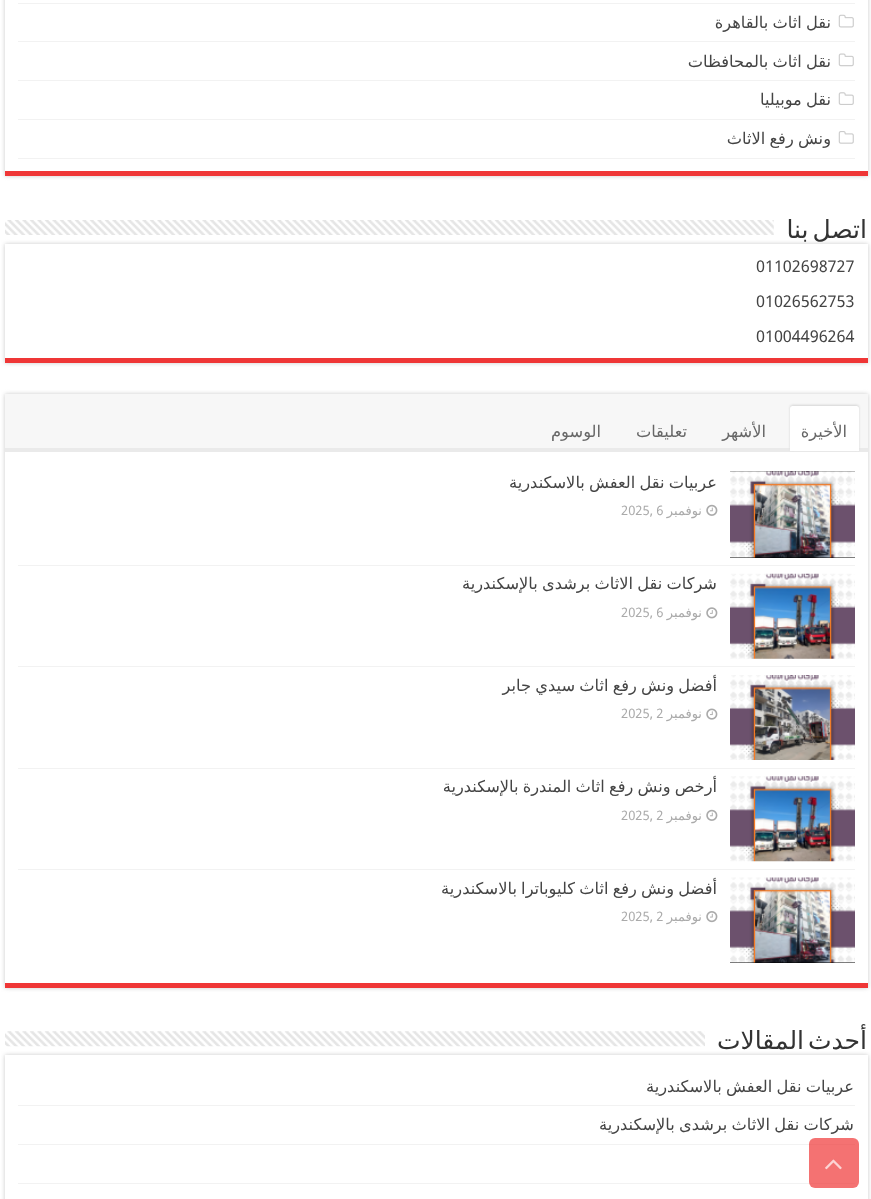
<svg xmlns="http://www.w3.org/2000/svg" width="871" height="1199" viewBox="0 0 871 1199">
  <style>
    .t1 { font: 16.25px DejaVu Sans; direction: rtl; fill: #444; }
    .t2 { font: 25px DejaVu Sans; direction: rtl; fill: #333; }
    .t3 { font: 16.25px Droid Sans; fill: #444; }
    .t4 { font: 16.25px DejaVu Sans; direction: rtl; fill: #666; }
    .t5 { font: 13px DejaVu Sans; direction: rtl; fill: #aaa; }
    .t6 { font: 13px Droid Sans; fill: #aaa; }
  </style>
  <defs>
    <clipPath id="clip1"><rect x="18" y="1068" width="837" height="37"/></clipPath>
    <clipPath id="clip2"><rect x="18" y="1106" width="837" height="38"/></clipPath>
  </defs>
  <rect width="100%" height="100%" fill="#fff"/>
  <rect x="5" y="-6" width="863" height="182" fill="#cacaca" filter="blur(2px)"/>
  <rect x="5" y="0" width="863" height="171" fill="#fff"/>
  <rect x="5" y="171" width="863" height="5" fill="#ef3636"/>
  <rect x="18" y="3" width="837" height="1" fill="#f2f2f2"/>
  <rect x="18" y="41" width="837" height="1" fill="#f2f2f2"/>
  <image x="838" y="14" width="16" height="14" href="images/1.png"/>
  <text x="831" y="28" word-spacing="-1" class="t1">نقل اثاث بالقاهرة</text>
  <rect x="18" y="80" width="837" height="1" fill="#f2f2f2"/>
  <image x="838" y="53" width="16" height="14" href="images/2.png"/>
  <text x="831" y="67" word-spacing="-1" class="t1">نقل اثاث بالمحافظات</text>
  <rect x="18" y="119" width="837" height="1" fill="#f2f2f2"/>
  <image x="838" y="92" width="16" height="13" href="images/3.png"/>
  <text x="831" y="105" word-spacing="-1" class="t1">نقل موبيليا</text>
  <rect x="18" y="158" width="837" height="1" fill="#f2f2f2"/>
  <image x="838" y="131" width="16" height="13" href="images/4.png"/>
  <text x="831" y="144" word-spacing="-1" class="t1">ونش رفع الاثاث</text>
  <rect x="5" y="244" width="863" height="119" fill="#cacaca" filter="blur(2px)"/>
  <text x="867" y="238" word-spacing="-4" class="t2">اتصل بنا</text>
  <image x="5" y="220" width="769" height="15" href="images/5.png"/>
  <rect x="5" y="244" width="863" height="114" fill="#fff"/>
  <rect x="5" y="358" width="863" height="5" fill="#ef3636"/>
  <text x="756" y="272" class="t3">01102698727</text>
  <text x="756" y="307" class="t3">01026562753</text>
  <text x="756" y="342" class="t3">01004496264</text>
  <rect x="5" y="394" width="863" height="594" fill="#cacaca" filter="blur(2px)"/>
  <rect x="5" y="452" width="863" height="531" fill="#fff"/>
  <rect x="5" y="983" width="863" height="5" fill="#ef3636"/>
  <rect x="5" y="394" width="863" height="54" fill="#f7f7f7"/>
  <rect x="5" y="448" width="863" height="4" fill="#eaeaea"/>
  <rect x="790" y="405" width="69" height="45" rx="2.5" fill="#d4d4d4" filter="blur(1px)"/>
  <path d="M792.5 406H856.5C858 406 859 407 859 408.5V451H790V408.5C790 407 791 406 792.5 406Z" fill="#fff"/>
  <text x="847" y="437" class="t4">الأخيرة</text>
  <text x="766" y="437" class="t4">الأشهر</text>
  <text x="687" y="437" class="t4">تعليقات</text>
  <text x="601" y="437" class="t4">الوسوم</text>
  <rect x="18" y="565" width="837" height="1" fill="#f2f2f2"/>
  <rect x="730" y="471" width="125" height="87" fill="#000"/>
  <image x="730" y="471" width="125" height="87" href="images/6.png"/>
  <text x="717" y="488" word-spacing="-1" class="t1">عربيات نقل العفش بالاسكندرية</text>
  <image x="706" y="504" width="12" height="12" href="images/7.png"/>
  <text x="702" y="515" class="t5">نوفمبر</text>
  <text x="621" y="515" class="t6">2025, 6</text>
  <rect x="18" y="666" width="837" height="1" fill="#f2f2f2"/>
  <image x="730" y="573" width="125" height="86" href="images/8.png"/>
  <text x="717" y="589" word-spacing="-1" class="t1">شركات نقل الاثاث برشدى بالإسكندرية</text>
  <image x="706" y="607" width="12" height="12" href="images/9.png"/>
  <text x="702" y="617" class="t5">نوفمبر</text>
  <text x="621" y="617" class="t6">2025, 6</text>
  <rect x="18" y="768" width="837" height="1" fill="#f2f2f2"/>
  <image x="730" y="675" width="125" height="85" href="images/10.png"/>
  <text x="717" y="691" word-spacing="-1" class="t1">أفضل ونش رفع اثاث سيدي جابر</text>
  <image x="706" y="708" width="12" height="12" href="images/11.png"/>
  <text x="702" y="718" class="t5">نوفمبر</text>
  <text x="621" y="718" class="t6">2025, 2</text>
  <rect x="18" y="869" width="837" height="1" fill="#f2f2f2"/>
  <image x="730" y="776" width="125" height="86" href="images/12.png"/>
  <text x="717" y="792" word-spacing="-1" class="t1">أرخص ونش رفع اثاث المندرة بالإسكندرية</text>
  <image x="706" y="809" width="12" height="12" href="images/7.png"/>
  <text x="702" y="820" class="t5">نوفمبر</text>
  <text x="621" y="820" class="t6">2025, 2</text>
  <rect x="730" y="962" width="125" height="1" fill="#000"/>
  <image x="730" y="877" width="125" height="86" href="images/13.png"/>
  <text x="717" y="894" word-spacing="-1" class="t1">أفضل ونش رفع اثاث كليوباترا بالاسكندرية</text>
  <image x="706" y="911" width="12" height="12" href="images/14.png"/>
  <text x="702" y="921" class="t5">نوفمبر</text>
  <text x="621" y="921" class="t6">2025, 2</text>
  <rect x="5" y="1055" width="863" height="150" fill="#cacaca" filter="blur(2px)"/>
  <text x="867" y="1049" word-spacing="-4" class="t2">أحدث المقالات</text>
  <image x="5" y="1031" width="700" height="16" href="images/15.png"/>
  <rect x="5" y="1055" width="863" height="144" fill="#fff"/>
  <rect x="18" y="1105" width="837" height="1" fill="#f2f2f2"/>
  <g clip-path="url(#clip1)">
    <text x="854" y="1092" word-spacing="-1" class="t1">عربيات نقل العفش بالاسكندرية</text>
  </g>
  <rect x="18" y="1144" width="837" height="1" fill="#f2f2f2"/>
  <g clip-path="url(#clip2)">
    <text x="854" y="1130" word-spacing="-1" class="t1">شركات نقل الاثاث برشدى بالإسكندرية</text>
  </g>
  <rect x="18" y="1183" width="837" height="1" fill="#f2f2f2"/>
  <rect x="809" y="1138" width="50" height="50" rx="6" fill="#ef3636b3"/>
  <image x="825" y="1159" width="17" height="11" href="images/16.png"/>
</svg>
